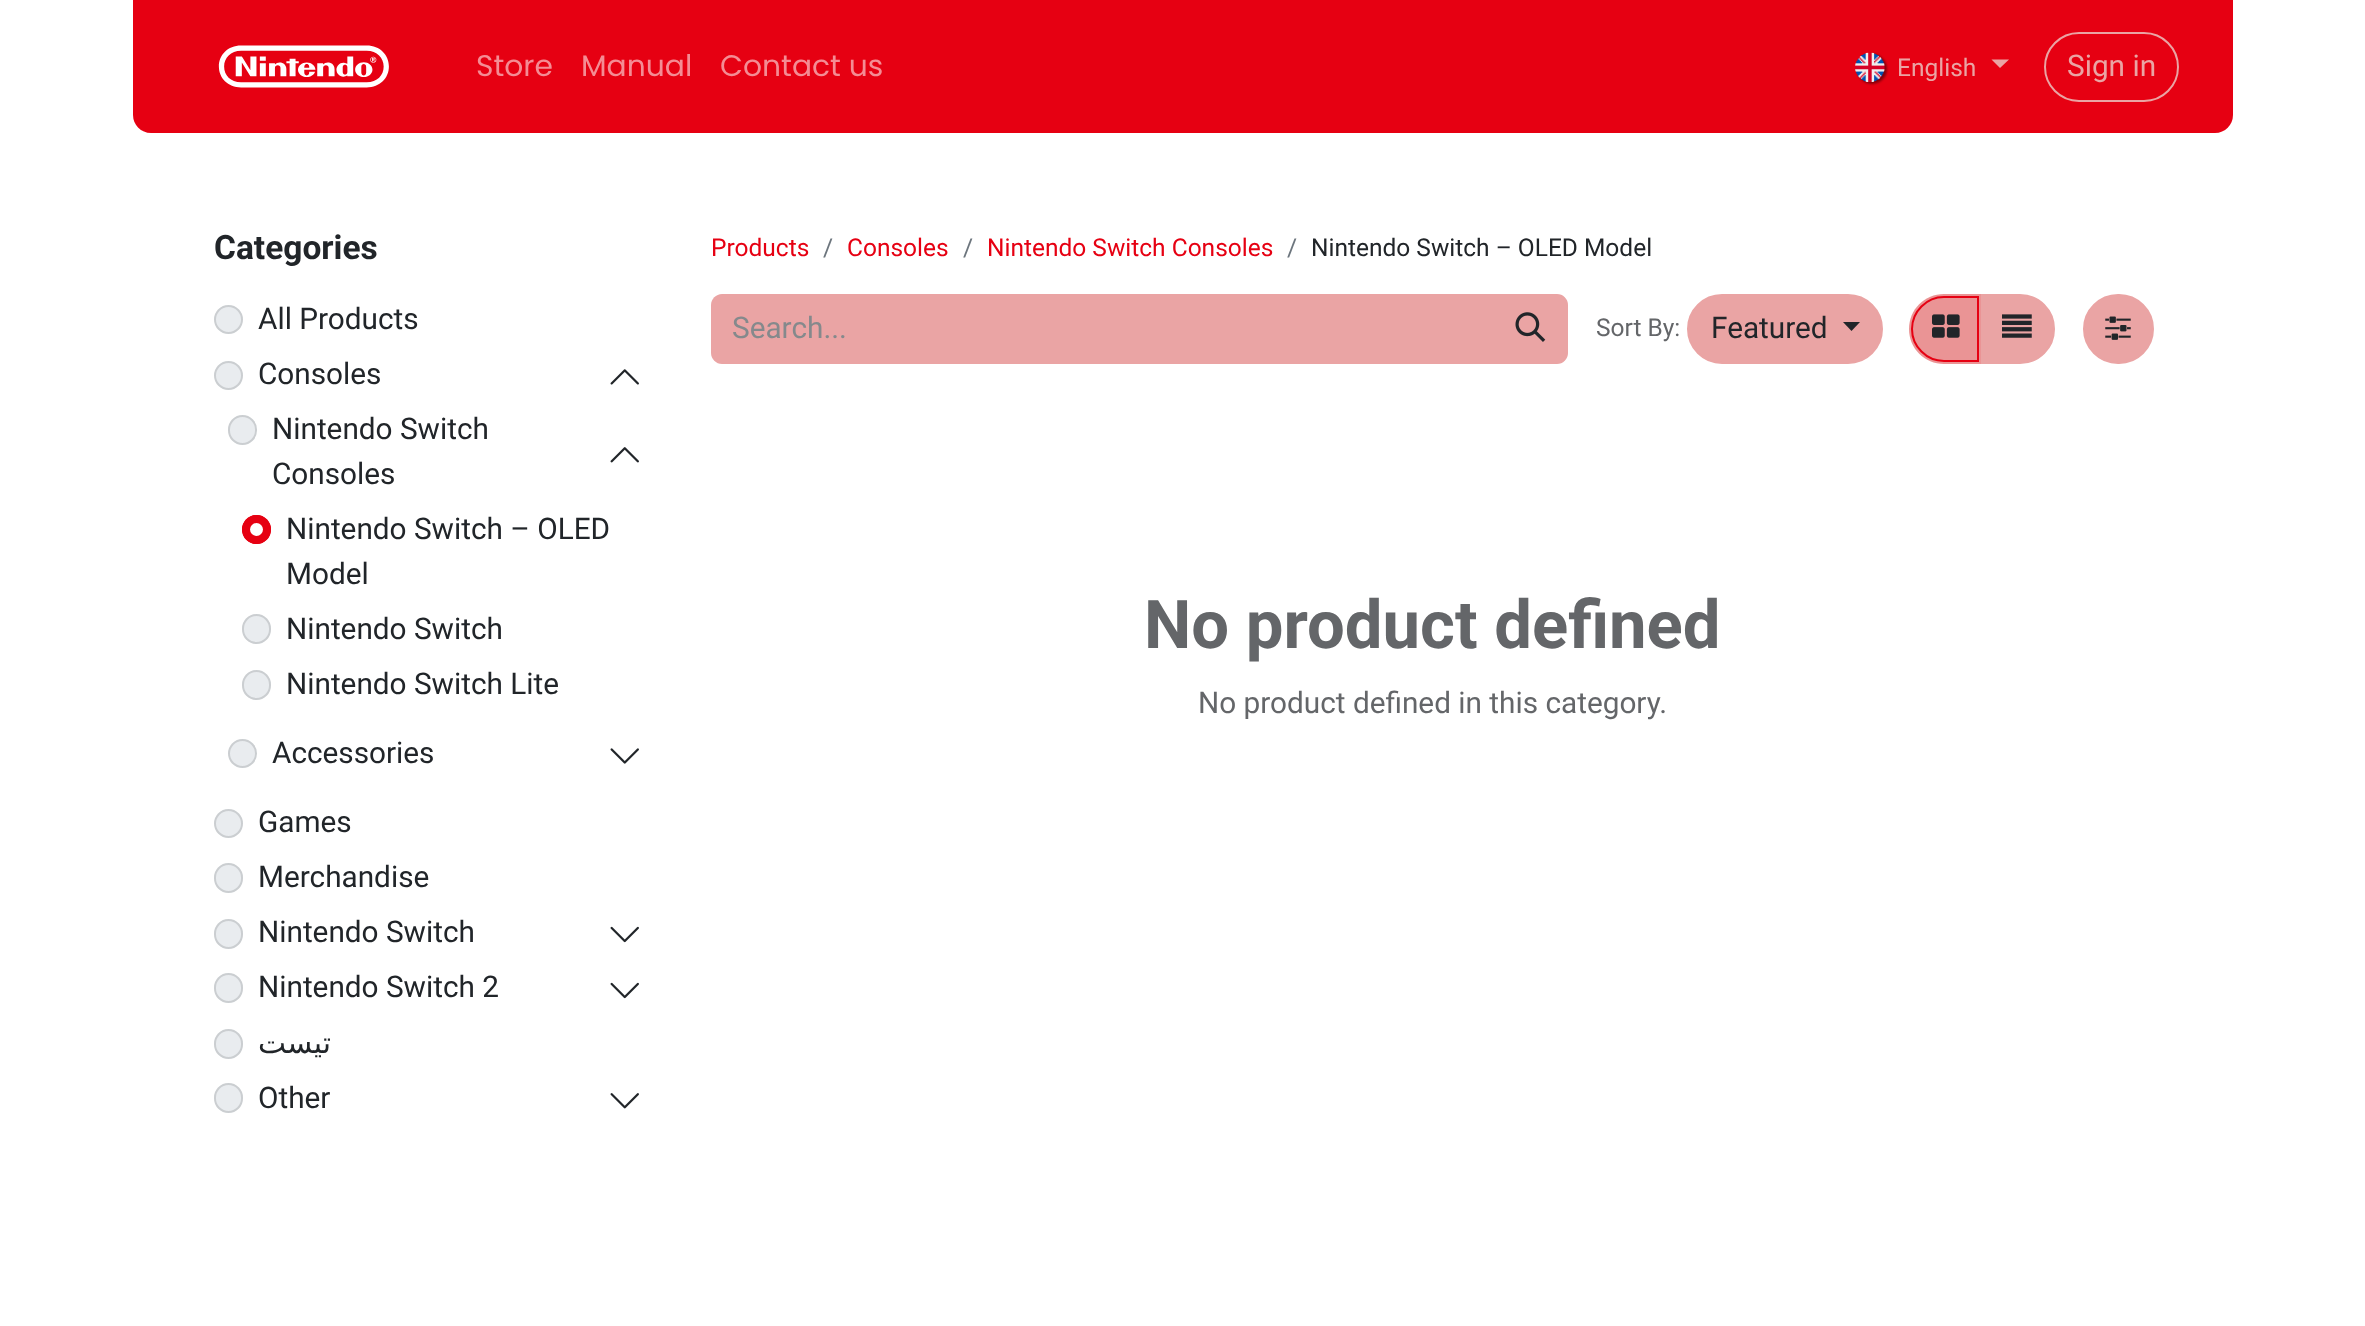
<svg xmlns="http://www.w3.org/2000/svg" width="2365" height="1326" viewBox="0 0 2365 1326">
  <style>
    .t1 { font: 29.75px Poppins; fill: #f48c94; }
    .t2 { font: 24.5px Roboto; fill: #eaa4a4; }
    .t3 { font: 29.75px Roboto; fill: #eaa4a4; }
    .t4 { font: bold 33.5px Roboto; fill: #212529; }
    .t5 { font: 29.75px Roboto; fill: #212529; }
    .t6 { font: 29.75px DejaVu Sans; direction: rtl; fill: #212529; }
    .t7 { font: 24.5px Roboto; fill: #e60012; }
    .t8 { font: 24.5px Roboto; fill: #6c757d; }
    .t9 { font: 24.5px Roboto; fill: #212529; }
    .t10 { font: 29.75px Roboto; fill: #85898c; }
    .t11 { font: 24.5px Roboto; fill: #646669; }
    .t12 { font: bold 67px Roboto; fill: #646669; }
    .t13 { font: 29.75px Roboto; fill: #646669; }
  </style>
  <rect width="100%" height="100%" fill="#fff"/>
  <path d="M133 0H2233V115C2233 125 2225 133 2215 133H151C141 133 133 125 133 115Z" fill="#e60012"/>
  <image x="218" y="45" width="171" height="43" href="images/1.png"/>
  <text x="476" y="76" class="t1">Store</text>
  <text x="581" y="76" class="t1">Manual</text>
  <text x="720" y="76" class="t1">Contact us</text>
  <rect x="1857" y="54" width="30" height="30" rx="15" fill="#0000006e" filter="blur(1px)"/>
  <image x="1855" y="52" width="30" height="30" href="images/2.png"/>
  <text x="1897" y="76" class="t2">English</text>
  <path d="M1991.5 59.5H2009L2000 68Z" fill="#eaa4a4"/>
  <rect x="2045" y="33" width="133" height="68" rx="34" fill="none" stroke="#eaa4a4" stroke-width="2"/>
  <text x="2067" y="76" class="t3">Sign in</text>
  <text x="214" y="259" class="t4">Categories</text>
  <circle cx="228.5" cy="319.5" r="14.5" fill="#e9ecef"/>
  <circle cx="228.5" cy="319.5" r="13.5" fill="none" stroke="#21252926" stroke-width="2"/>
  <text x="258" y="329" class="t5">All Products</text>
  <circle cx="228.5" cy="375.5" r="14.5" fill="#e9ecef"/>
  <circle cx="228.5" cy="375.5" r="13.5" fill="none" stroke="#21252926" stroke-width="2"/>
  <text x="258" y="384" class="t5">Consoles</text>
  <image x="610" y="369" width="29" height="16" href="images/3.png"/>
  <rect x="228" y="415" width="29" height="30" rx="14.5" fill="#e9ecef"/>
  <rect x="229" y="416" width="27" height="28" rx="13.5" fill="none" stroke="#21252926" stroke-width="2"/>
  <text x="272" y="439" class="t5">Nintendo Switch</text>
  <text x="272" y="484" class="t5">Consoles</text>
  <image x="610" y="447" width="29" height="16" href="images/4.png"/>
  <circle cx="256.5" cy="529.5" r="14.5" fill="#e60012"/>
  <circle cx="256.5" cy="529.5" r="6.5" fill="#fff"/>
  <circle cx="256.5" cy="529.5" r="13.5" fill="none" stroke="#e60012" stroke-width="2"/>
  <text x="286" y="539" class="t5">Nintendo Switch – OLED</text>
  <text x="286" y="584" class="t5">Model</text>
  <rect x="242" y="614" width="29" height="30" rx="14.5" fill="#e9ecef"/>
  <rect x="243" y="615" width="27" height="28" rx="13.5" fill="none" stroke="#21252926" stroke-width="2"/>
  <text x="286" y="639" class="t5">Nintendo Switch</text>
  <rect x="242" y="670" width="29" height="30" rx="14.5" fill="#e9ecef"/>
  <rect x="243" y="671" width="27" height="28" rx="13.5" fill="none" stroke="#21252926" stroke-width="2"/>
  <text x="286" y="694" class="t5">Nintendo Switch Lite</text>
  <circle cx="242.5" cy="753.5" r="14.5" fill="#e9ecef"/>
  <circle cx="242.5" cy="753.5" r="13.5" fill="none" stroke="#21252926" stroke-width="2"/>
  <text x="272" y="763" class="t5">Accessories</text>
  <image x="610" y="748" width="29" height="16" href="images/5.png"/>
  <circle cx="228.5" cy="823.5" r="14.5" fill="#e9ecef"/>
  <circle cx="228.5" cy="823.5" r="13.5" fill="none" stroke="#21252926" stroke-width="2"/>
  <text x="258" y="832" class="t5">Games</text>
  <rect x="214" y="863" width="29" height="30" rx="14.5" fill="#e9ecef"/>
  <rect x="215" y="864" width="27" height="28" rx="13.5" fill="none" stroke="#21252926" stroke-width="2"/>
  <text x="258" y="887" class="t5">Merchandise</text>
  <rect x="214" y="919" width="29" height="30" rx="14.5" fill="#e9ecef"/>
  <rect x="215" y="920" width="27" height="28" rx="13.5" fill="none" stroke="#21252926" stroke-width="2"/>
  <text x="258" y="942" class="t5">Nintendo Switch</text>
  <image x="610" y="926" width="29" height="17" href="images/6.png"/>
  <rect x="214" y="973" width="29" height="30" rx="14.5" fill="#e9ecef"/>
  <rect x="215" y="974" width="27" height="28" rx="13.5" fill="none" stroke="#21252926" stroke-width="2"/>
  <text x="258" y="997" class="t5">Nintendo Switch 2</text>
  <image x="610" y="982" width="29" height="17" href="images/6.png"/>
  <rect x="214" y="1029" width="29" height="30" rx="14.5" fill="#e9ecef"/>
  <rect x="215" y="1030" width="27" height="28" rx="13.5" fill="none" stroke="#21252926" stroke-width="2"/>
  <text x="331" y="1053" class="t6">تيست</text>
  <rect x="214" y="1083" width="29" height="30" rx="14.5" fill="#e9ecef"/>
  <rect x="215" y="1084" width="27" height="28" rx="13.5" fill="none" stroke="#21252926" stroke-width="2"/>
  <text x="258" y="1108" class="t5">Other</text>
  <image x="610" y="1093" width="29" height="16" href="images/7.png"/>
  <text x="711" y="256" class="t7">Products</text>
  <text x="823" y="256" class="t8">/</text>
  <text x="847" y="256" class="t7">Consoles</text>
  <text x="963" y="256" class="t8">/</text>
  <text x="987" y="256" class="t7">Nintendo Switch Consoles</text>
  <text x="1287" y="256" class="t8">/</text>
  <text x="1311" y="256" class="t9">Nintendo Switch – OLED Model</text>
  <path d="M722 294H1495V364H722C716 364 711 359 711 353V305C711 299 716 294 722 294Z" fill="#eaa4a4"/>
  <text x="732" y="338" class="t10">Search...</text>
  <path d="M1494 295H1557C1562.5 295 1567 299.5 1567 305V353C1567 358.5 1562.5 363 1557 363H1494Z" fill="#eaa4a4" stroke="#eaa4a4" stroke-width="2"/>
  <image x="1515" y="312" width="31" height="30" href="images/8.png"/>
  <text x="1596" y="336" class="t11">Sort By:</text>
  <rect x="1688" y="295" width="194" height="68" rx="34" fill="#eaa4a4" stroke="#eaa4a4" stroke-width="2"/>
  <text x="1711" y="338" class="t5">Featured</text>
  <path d="M1843 322H1860L1851.5 331Z" fill="#212529"/>
  <path d="M1980 295H2020C2039 295 2054 310 2054 329C2054 348 2039 363 2020 363H1980Z" fill="#eaa4a4" stroke="#eaa4a4" stroke-width="2"/>
  <path d="M1944 294H1981V364H1944C1924.5 364 1909 348.5 1909 329C1909 309.5 1924.5 294 1944 294Z" fill="#ea9495"/>
  <path d="M1944 297H1978V361H1944C1926.5 361 1912 346.5 1912 329C1912 311.5 1926.5 297 1944 297Z" fill="none" stroke="#e60012" stroke-width="2"/>
  <image x="1932" y="314" width="28" height="24" href="images/9.png"/>
  <image x="2002" y="314" width="30" height="24" href="images/10.png"/>
  <rect x="2084" y="295" width="69" height="68" rx="34" fill="#eaa4a4" stroke="#eaa4a4" stroke-width="2"/>
  <image x="2105" y="316" width="26" height="24" href="images/11.png"/>
  <text x="1144" y="648" class="t12">No product defined</text>
  <text x="1198" y="713" class="t13">No product defined in this category.</text>
</svg>
